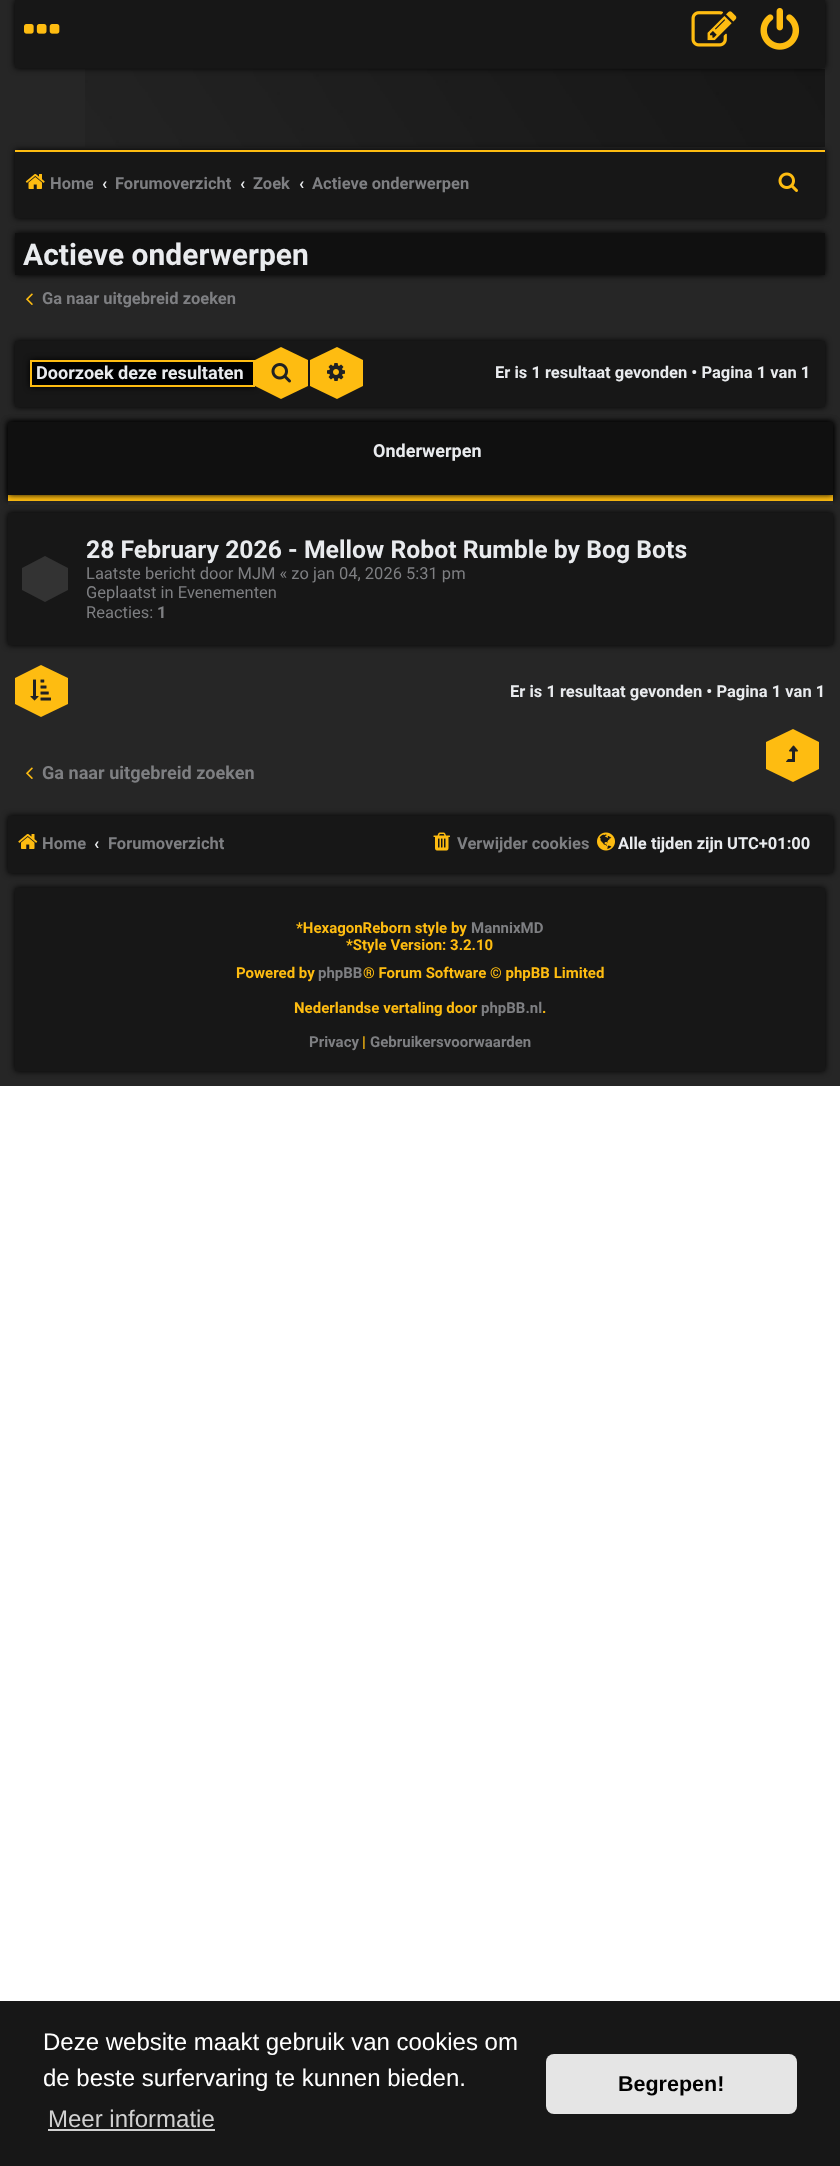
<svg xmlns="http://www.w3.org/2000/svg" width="840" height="2166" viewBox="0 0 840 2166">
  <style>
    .t1 { font: bold 16.5px Roboto; fill: #7e7f82; }
    .t2 { font: bold 16.5px Roboto; fill: #e9ebee; }
    .t3 { font: bold 30px Roboto; fill: #e9ebee; }
    .t4 { font: bold 18.1px Roboto; fill: #e9ebee; }
    .t5 { font: bold 18px Roboto; fill: #e9ebee; }
    .t6 { font: bold 24.75px Roboto; fill: #e9ebee; }
    .t7 { font: 16.5px Roboto; fill: #7e7f82; }
    .t8 { font: bold 18.1px Roboto; fill: #7e7f82; }
    .t9 { font: bold 15px Roboto; fill: #febc11; }
    .t10 { font: bold 15px Roboto; fill: #7e7f82; }
    .t11 { font: 24px Liberation Sans; fill: #fff; }
    .t12 { font: 24px Liberation Sans; fill: #d1d1d1; }
    .t13 { font: bold 21.5px Liberation Sans; fill: #000; }
  </style>
  <defs>
    <clipPath id="clip1"><rect x="23" y="167" width="70" height="36"/></clipPath>
    <clipPath id="clip2"><rect x="116" y="167" width="115" height="36"/></clipPath>
    <clipPath id="clip3"><rect x="36" y="363" width="207" height="21"/></clipPath>
    <clipPath id="clip4"><path d="M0 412H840V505H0ZM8 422H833V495H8Z" clip-rule="evenodd"/></clipPath>
    <clipPath id="clip5"><path d="M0 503H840V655H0ZM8 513H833V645H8Z" clip-rule="evenodd"/></clipPath>
  </defs>
  <rect width="100%" height="100%" fill="#fff"/>
  <rect x="0" y="0" width="840" height="1086" fill="#262626"/>
  <image x="85" y="69" width="740" height="78" href="images/4.png"/>
  <rect x="15" y="0" width="810" height="68" fill="#000" filter="blur(3px)"/>
  <rect x="15" y="0" width="810" height="68" fill="#171717"/>
  <image x="24" y="24" width="36" height="10" href="images/1.png"/>
  <image x="691" y="11" width="46" height="36" href="images/2.png"/>
  <image x="760" y="7" width="40" height="43" href="images/3.png"/>
  <rect x="15" y="150" width="810" height="68" fill="#000" filter="blur(3px)"/>
  <rect x="15" y="152" width="810" height="66" fill="#171717"/>
  <rect x="15" y="150" width="810" height="2" fill="#febc11"/>
  <image x="25" y="174" width="20" height="15" href="images/5.png"/>
  <g clip-path="url(#clip1)">
    <text x="50" y="189" class="t1">Home</text>
  </g>
  <text x="102" y="189" class="t2">‹</text>
  <g clip-path="url(#clip2)">
    <text x="115" y="189" class="t1">Forumoverzicht</text>
  </g>
  <text x="240" y="189" class="t2">‹</text>
  <text x="253" y="189" class="t1">Zoek</text>
  <text x="299" y="189" class="t2">‹</text>
  <text x="312" y="189" class="t1">Actieve onderwerpen</text>
  <image x="778" y="172" width="20" height="20" href="images/6.png"/>
  <rect x="15" y="233" width="810" height="42" fill="#000" filter="blur(3px)"/>
  <rect x="15" y="233" width="810" height="42" fill="#101010"/>
  <text x="23" y="265" class="t3">Actieve onderwerpen</text>
  <image x="26" y="293" width="7" height="12" href="images/7.png"/>
  <text x="42" y="304" class="t1">Ga naar uitgebreid zoeken</text>
  <rect x="15" y="341" width="810" height="66" fill="#000" filter="blur(3px)"/>
  <rect x="15" y="341" width="810" height="66" fill="#171717"/>
  <rect x="30" y="360" width="225" height="27" fill="#000" filter="blur(3px)"/>
  <rect x="31" y="361" width="223" height="25" fill="#000" stroke="#febc11" stroke-width="2"/>
  <g clip-path="url(#clip3)">
    <text x="36" y="379" class="t4">Doorzoek deze resultaten</text>
  </g>
  <path d="M255 360L281 347L308 360V386L281 399L255 386Z" fill="#febc11"/>
  <image x="271" y="363" width="20" height="20" href="images/8.png"/>
  <path d="M310 360L337 347L363 360V386L337 399L310 386Z" fill="#febc11"/>
  <image x="327" y="363" width="18" height="18" href="images/9.png"/>
  <text x="495" y="378" class="t2">Er is 1 resultaat gevonden • Pagina 1 van 1</text>
  <rect x="8" y="422" width="825" height="79" fill="#000" filter="blur(3px)"/>
  <rect x="8" y="422" width="825" height="73" fill="#101010"/>
  <rect x="8" y="495" width="825" height="6" fill="#febc11"/>
  <rect x="8" y="501" width="825" height="4" fill="#262626"/>
  <g clip-path="url(#clip4)">
    <rect x="8" y="422" width="825" height="73" fill="#000" filter="blur(3px)"/>
  </g>
  <text x="373" y="457" class="t5">Onderwerpen</text>
  <rect x="8" y="513" width="825" height="132" fill="#171717"/>
  <g clip-path="url(#clip5)">
    <rect x="8" y="513" width="825" height="132" fill="#000" filter="blur(3px)"/>
  </g>
  <path d="M22 568L45 556L68 568V590L45 602L22 590Z" fill="#333"/>
  <text x="86" y="558" class="t6">28 February 2026 - Mellow Robot Rumble by Bog Bots</text>
  <text x="86" y="579" class="t7">Laatste bericht door MJM « zo jan 04, 2026 5:31 pm</text>
  <text x="86" y="598" class="t7">Geplaatst in Evenementen</text>
  <text x="86" y="618" class="t7">Reacties:</text>
  <text x="157" y="618" class="t1">1</text>
  <path d="M15 678L41 665L68 678V704L41 717L15 704Z" fill="#febc11"/>
  <image x="30" y="679" width="21" height="22" href="images/10.png"/>
  <text x="510" y="697" class="t2">Er is 1 resultaat gevonden • Pagina 1 van 1</text>
  <image x="26" y="767" width="7" height="12" href="images/7.png"/>
  <text x="42" y="779" class="t8">Ga naar uitgebreid zoeken</text>
  <path d="M766 742L793 729L819 742V769L793 782L766 769Z" fill="#febc11"/>
  <image x="786" y="745" width="12" height="17" href="images/11.png"/>
  <rect x="8" y="816" width="825" height="57" fill="#000" filter="blur(3px)"/>
  <rect x="8" y="816" width="825" height="57" fill="#171717"/>
  <image x="18" y="834" width="20" height="15" href="images/12.png"/>
  <text x="42" y="849" class="t1">Home</text>
  <text x="94" y="849" class="t2">‹</text>
  <text x="108" y="849" class="t1">Forumoverzicht</text>
  <image x="433" y="832" width="17" height="19" href="images/13.png"/>
  <text x="457" y="849" class="t1">Verwijder cookies</text>
  <image x="597" y="832" width="18" height="19" href="images/14.png"/>
  <text x="618" y="849" class="t2">Alle tijden zijn UTC+01:00</text>
  <rect x="15" y="888" width="810" height="183" fill="#000" filter="blur(3px)"/>
  <rect x="15" y="888" width="810" height="183" fill="#171717"/>
  <text x="296" y="933" class="t9">*HexagonReborn style by</text>
  <text x="471" y="933" class="t10">MannixMD</text>
  <text x="346" y="950" class="t9">*Style Version: 3.2.10</text>
  <text x="236" y="978" class="t9">Powered by</text>
  <text x="318" y="978" class="t10">phpBB</text>
  <text x="363" y="978" class="t9">® Forum Software © phpBB Limited</text>
  <text x="294" y="1013" class="t9">Nederlandse vertaling door</text>
  <text x="481" y="1013" class="t10">phpBB.nl</text>
  <text x="542" y="1013" class="t9">.</text>
  <text x="309" y="1047" class="t10">Privacy</text>
  <text x="362" y="1047" class="t9">|</text>
  <text x="370" y="1047" class="t10">Gebruikersvoorwaarden</text>
  <rect x="0" y="2001" width="840" height="165" fill="#171717"/>
  <text x="43" y="2050" class="t11">Deze website maakt gebruik van cookies om</text>
  <text x="43" y="2086" class="t11">de beste surfervaring te kunnen bieden.</text>
  <text x="48" y="2127" class="t12">Meer informatie</text>
  <rect x="48" y="2129" width="167" height="2" fill="#d1d1d1"/>
  <rect x="546" y="2054" width="251" height="60" rx="8" fill="#e5e5e5"/>
  <text x="618" y="2091" class="t13">Begrepen!</text>
</svg>
